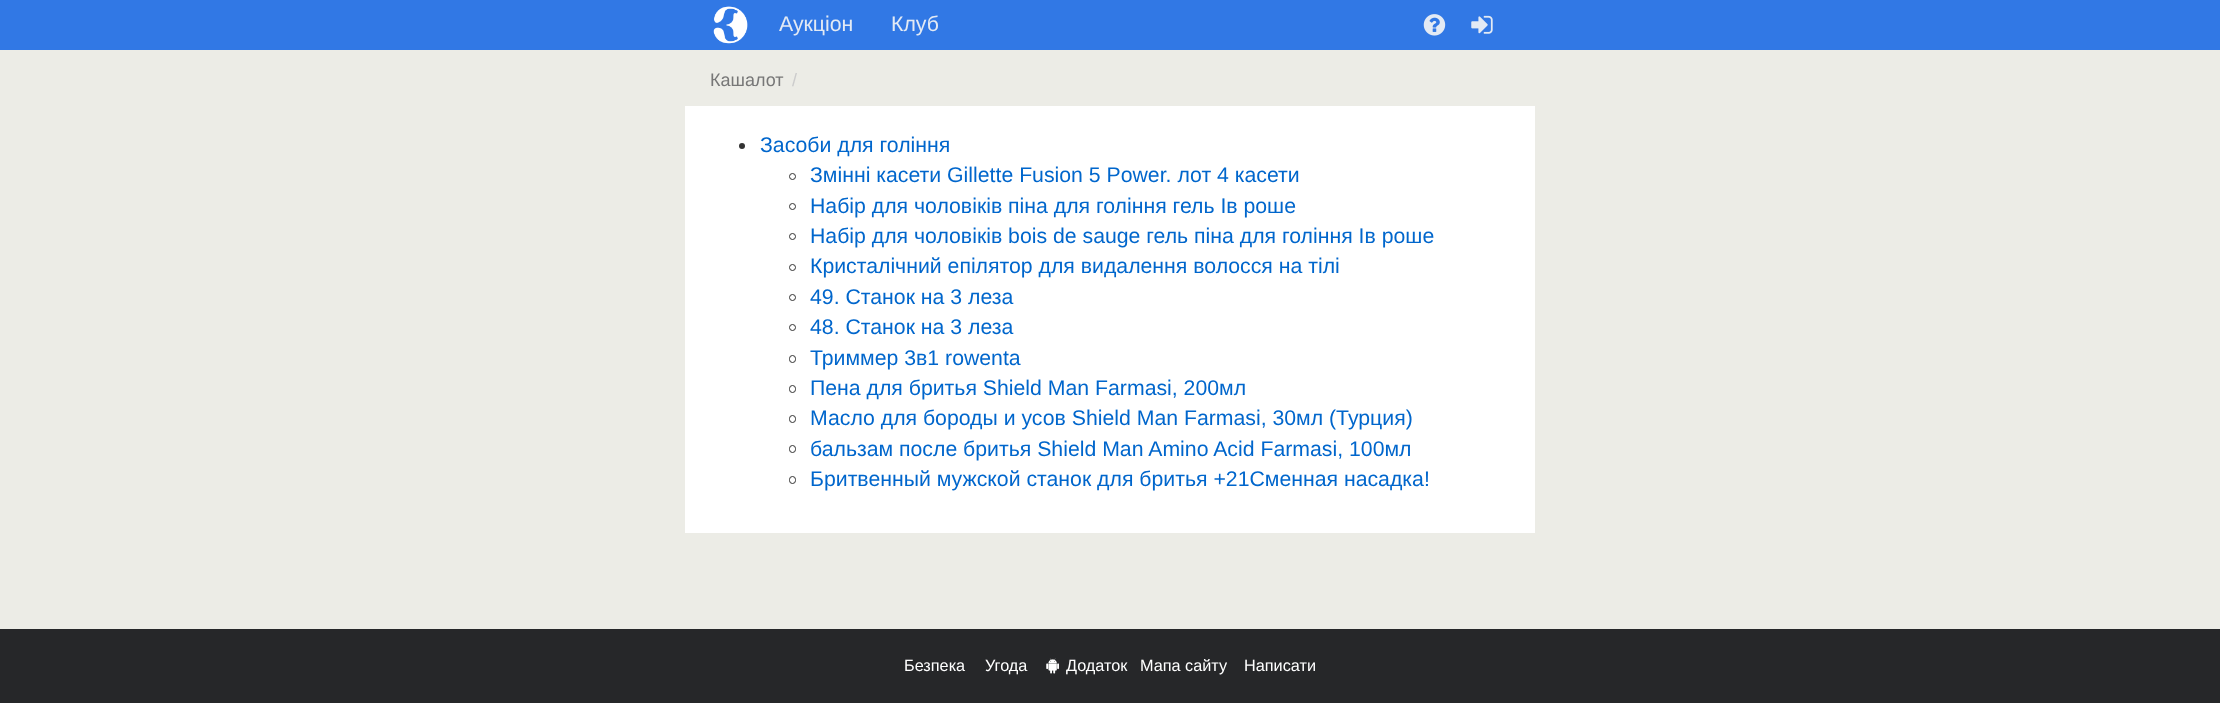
<svg xmlns="http://www.w3.org/2000/svg" width="2220" height="703" viewBox="0 0 2220 703">
  <style>
    .t1 { font: 21.25px Liberation Sans; fill: #e3eaf4; }
    .t2 { font: 18px Liberation Sans; fill: #777; }
    .t3 { font: 18px Liberation Sans; fill: #ccc; }
    .t4 { font: 21.25px Liberation Sans; fill: #06c; }
    .t5 { font: 16.25px Liberation Sans; fill: #fff; }
  </style>
  <rect width="100%" height="100%" fill="#ecece6"/>
  <rect x="0" y="0" width="2220" height="50" fill="#3178e5"/>
  <image x="713" y="6" width="35" height="38" href="images/1.png"/>
  <text x="779" y="31" class="t1">Аукціон</text>
  <text x="891" y="31" class="t1">Клуб</text>
  <image x="1423" y="14" width="23" height="22" href="images/2.png"/>
  <image x="1471" y="15" width="22" height="19" href="images/3.png"/>
  <text x="710" y="86" class="t2">Кашалот</text>
  <text x="792" y="86" class="t3">/</text>
  <rect x="685" y="106" width="850" height="427" fill="#fff"/>
  <circle cx="742" cy="146" r="3" fill="#333"/>
  <text x="760" y="152" class="t4">Засоби для гоління</text>
  <circle cx="792.5" cy="176.5" r="3" fill="none" stroke="#333"/>
  <text x="810" y="182" class="t4">Змінні касети Gillette Fusion 5 Power. лот 4 касети</text>
  <circle cx="792.5" cy="206.5" r="3" fill="none" stroke="#333"/>
  <text x="810" y="213" class="t4">Набір для чоловіків піна для гоління гель Ів роше</text>
  <circle cx="792.5" cy="236.5" r="3" fill="none" stroke="#333"/>
  <text x="810" y="243" class="t4">Набір для чоловіків bois de sauge гель піна для гоління Ів роше</text>
  <circle cx="792.5" cy="267.5" r="3" fill="none" stroke="#333"/>
  <text x="810" y="273" class="t4">Кристалічний епілятор для видалення волосся на тілі</text>
  <circle cx="792.5" cy="297.5" r="3" fill="none" stroke="#333"/>
  <text x="810" y="304" class="t4">49. Станок на 3 леза</text>
  <circle cx="792.5" cy="327.5" r="3" fill="none" stroke="#333"/>
  <text x="810" y="334" class="t4">48. Станок на 3 леза</text>
  <rect x="789.5" y="355.5" width="6" height="7" rx="3" fill="none" stroke="#333"/>
  <text x="810" y="365" class="t4">Триммер 3в1 rowenta</text>
  <rect x="789.5" y="385.5" width="6" height="7" rx="3" fill="none" stroke="#333"/>
  <text x="810" y="395" class="t4">Пена для бритья Shield Man Farmasi, 200мл</text>
  <rect x="789.5" y="415.5" width="6" height="7" rx="3" fill="none" stroke="#333"/>
  <text x="810" y="425" class="t4">Масло для бороды и усов Shield Man Farmasi, 30мл (Турция)</text>
  <rect x="789.5" y="445.5" width="6" height="7" rx="3" fill="none" stroke="#333"/>
  <text x="810" y="456" class="t4">бальзам после бритья Shield Man Amino Acid Farmasi, 100мл</text>
  <rect x="789.5" y="476.5" width="6" height="7" rx="3" fill="none" stroke="#333"/>
  <text x="810" y="486" class="t4">Бритвенный мужской станок для бритья +21Сменная насадка!</text>
  <rect x="0" y="629" width="2220" height="74" fill="#262729"/>
  <text x="904" y="671" class="t5">Безпека</text>
  <text x="985" y="671" class="t5">Угода</text>
  <image x="1046" y="658" width="13" height="16" href="images/4.png"/>
  <text x="1066" y="671" class="t5">Додаток</text>
  <text x="1140" y="671" class="t5">Мапа сайту</text>
  <text x="1244" y="671" class="t5">Написати</text>
</svg>
